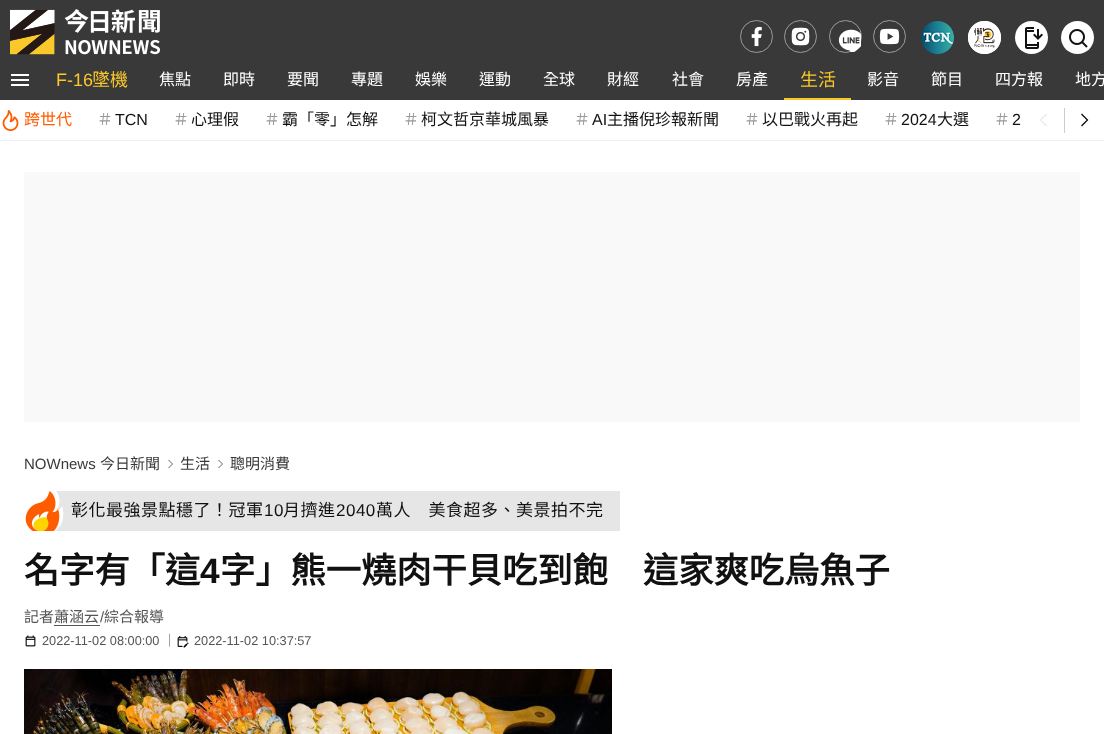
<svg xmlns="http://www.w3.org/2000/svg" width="1104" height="734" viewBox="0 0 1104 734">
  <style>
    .t1 { font: 18px Liberation Sans; fill: #fac828; }
    .t2 { font: 18px Noto Sans CJK TC; fill: #fac828; }
    .t3 { font: 16px Noto Sans CJK TC; fill: #fff; }
    .t4 { font: 16px Noto Sans CJK TC; fill: #ff5c00; }
    .t5 { font: 16px Noto Sans CJK TC; fill: #999; }
    .t6 { font: 16px Liberation Sans; fill: #111; }
    .t7 { font: 16px Noto Sans CJK TC; fill: #111; }
    .t8 { font: 15px Liberation Sans; fill: #393939; }
    .t9 { font: 15px Noto Sans CJK TC; fill: #393939; }
    .t10 { font: 17px Noto Sans CJK TC; letter-spacing: 0.5px; fill: #111; }
    .t11 { font: 17px Liberation Sans; letter-spacing: 0.5px; fill: #111; }
    .t12 { font: bold 35.25px Noto Sans CJK TC; fill: #111; }
    .t13 { font: bold 35.25px Liberation Sans; fill: #111; }
    .t14 { font: 15px Noto Sans CJK TC; fill: #555; }
    .t15 { font: 15px Liberation Sans; fill: #555; }
    .t16 { font: 12.75px Liberation Sans; fill: #555; }
    .t17 { font: 12.75px Noto Sans CJK TC; fill: #555; }
  </style>
  <rect width="100%" height="100%" fill="#fff"/>
  <rect x="0" y="0" width="1104" height="100" fill="#393939"/>
  <image x="10" y="9" width="150" height="46" href="images/1.png"/>
  <circle cx="756.5" cy="36.5" r="16" fill="none" stroke="#9c9c9c"/>
  <image x="751" y="26" width="11" height="21" href="images/2.png"/>
  <circle cx="800.5" cy="36.5" r="16" fill="none" stroke="#9c9c9c"/>
  <image x="791" y="27" width="19" height="19" href="images/3.png"/>
  <circle cx="845.5" cy="36.5" r="16" fill="none" stroke="#9c9c9c"/>
  <image x="838" y="29" width="23" height="23" href="images/4.png"/>
  <circle cx="889.5" cy="36.5" r="16" fill="none" stroke="#9c9c9c"/>
  <image x="879" y="28" width="21" height="17" href="images/5.png"/>
  <image x="921" y="21" width="33" height="33" href="images/6.png"/>
  <image x="968" y="21" width="33" height="33" href="images/7.png"/>
  <image x="968" y="21" width="33" height="33" href="images/8.png"/>
  <circle cx="1031.5" cy="37.5" r="16.5" fill="#fff"/>
  <image x="1025" y="27" width="18" height="22" href="images/9.png"/>
  <circle cx="1077.5" cy="37.5" r="16.5" fill="#fff"/>
  <image x="1069" y="29" width="19" height="19" href="images/10.png"/>
  <image x="11" y="74" width="18" height="12" href="images/11.png"/>
  <text x="56" y="86" class="t1">F-16</text>
  <text x="92" y="86" class="t2">墜機</text>
  <text x="159" y="85" class="t3">焦點</text>
  <text x="223" y="85" class="t3">即時</text>
  <text x="287" y="85" class="t3">要聞</text>
  <text x="351" y="85" class="t3">專題</text>
  <text x="415" y="85" class="t3">娛樂</text>
  <text x="479" y="85" class="t3">運動</text>
  <text x="543" y="85" class="t3">全球</text>
  <text x="607" y="85" class="t3">財經</text>
  <text x="672" y="85" class="t3">社會</text>
  <text x="736" y="85" class="t3">房產</text>
  <text x="800" y="86" class="t2">生活</text>
  <rect x="784" y="98" width="67" height="2" fill="#fac828"/>
  <text x="867" y="85" class="t3">影音</text>
  <text x="931" y="85" class="t3">節目</text>
  <text x="995" y="85" class="t3">四方報</text>
  <text x="1075" y="85" class="t3">地方</text>
  <rect x="0" y="140" width="1104" height="1" fill="#eee"/>
  <image x="2" y="110" width="17" height="21" href="images/12.png"/>
  <text x="24" y="125" class="t4">跨世代</text>
  <text x="97" y="125" class="t5">＃</text>
  <text x="115" y="125" class="t6">TCN</text>
  <text x="173" y="125" class="t5">＃</text>
  <text x="191" y="125" class="t7">心理假</text>
  <text x="264" y="125" class="t5">＃</text>
  <text x="282" y="125" class="t7">霸「零」怎解</text>
  <text x="403" y="125" class="t5">＃</text>
  <text x="421" y="125" class="t7">柯文哲京華城風暴</text>
  <text x="574" y="125" class="t5">＃</text>
  <text x="592" y="125" class="t6">AI</text>
  <text x="607" y="125" class="t7">主播倪珍報新聞</text>
  <text x="744" y="125" class="t5">＃</text>
  <text x="762" y="125" class="t7">以巴戰火再起</text>
  <text x="883" y="125" class="t5">＃</text>
  <text x="901" y="125" class="t6">2024</text>
  <text x="937" y="125" class="t7">大選</text>
  <text x="994" y="125" class="t5">＃</text>
  <text x="1012" y="125" class="t6">2</text>
  <path d="M1046.5 114L1040.5 120L1046.5 126" fill="none" stroke="#e8e8e8" stroke-width="1.2"/>
  <rect x="1064" y="108" width="1" height="25" fill="#ccc"/>
  <path d="M1081.5 126L1087.5 120L1081.5 114" fill="none" stroke="#000" stroke-width="1.2"/>
  <rect x="24" y="172" width="1056" height="250" fill="#f9f9f9"/>
  <text x="24" y="469" class="t8">NOWnews</text>
  <text x="100" y="469" class="t9">今日新聞</text>
  <path d="M168.5 468L172.5 464L168.5 460" fill="none" stroke="#393939" stroke-width="0.8"/>
  <text x="180" y="469" class="t9">生活</text>
  <path d="M218.5 468L222.5 464L218.5 460" fill="none" stroke="#393939" stroke-width="0.8"/>
  <text x="230" y="469" class="t9">聰明消費</text>
  <rect x="54" y="491" width="566" height="40" fill="#e6e6e6"/>
  <image x="24" y="491" width="40" height="40" href="images/13.png"/>
  <text x="71" y="516" class="t10">彰化最強景點穩了！冠軍</text>
  <text x="264" y="516" class="t11">10</text>
  <text x="283" y="516" class="t10">月擠進</text>
  <text x="336" y="516" class="t11">2040</text>
  <text x="376" y="516" class="t10">萬人　美食超多、美景拍不完</text>
  <text x="24" y="583" class="t12">名字有「這</text>
  <text x="200" y="583" class="t13">4</text>
  <text x="220" y="583" class="t12">字」熊一燒肉干貝吃到飽　這家爽吃烏魚子</text>
  <text x="24" y="622" class="t14">記者蕭涵云</text>
  <text x="100" y="622" class="t15">/</text>
  <text x="104" y="622" class="t14">綜合報導</text>
  <rect x="54" y="625" width="46" height="1" fill="#555"/>
  <image x="25" y="635" width="11" height="12" href="images/14.png"/>
  <text x="42" y="645" class="t16">2022-11-02 08:00:00</text>
  <text x="163" y="645" class="t17">｜</text>
  <image x="177" y="636" width="12" height="12" href="images/15.png"/>
  <text x="194" y="645" class="t16">2022-11-02 10:37:57</text>
  <image x="24" y="669" width="588" height="65" href="images/16.png"/>
</svg>
